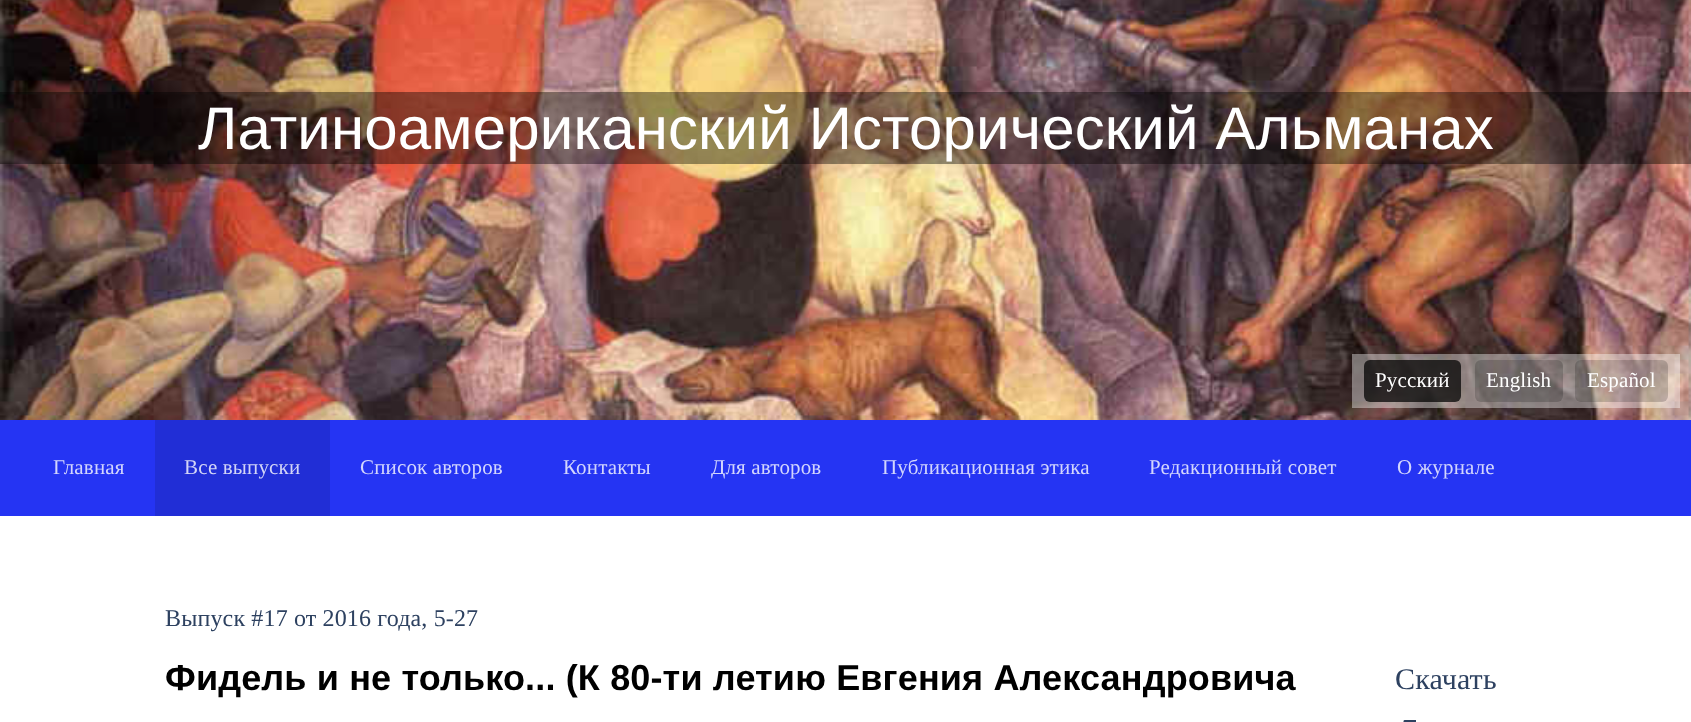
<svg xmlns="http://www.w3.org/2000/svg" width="1691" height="722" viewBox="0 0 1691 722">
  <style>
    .t1 { font: 60px Liberation Sans; letter-spacing: 0.15px; fill: #fff; }
    .t2 { font: 21px Liberation Serif; letter-spacing: 0.15px; fill: #fff; }
    .t3 { font: 21px Liberation Serif; letter-spacing: 0.15px; fill: #d3d6fd; }
    .t4 { font: 21px Liberation Serif; letter-spacing: 0.15px; fill: #d3d5f7; }
    .t5 { font: 24px Liberation Serif; letter-spacing: 0.15px; fill: #2d4160; }
    .t6 { font: bold 36px Liberation Sans; letter-spacing: 0.15px; fill: #000; }
    .t7 { font: 30px Liberation Serif; letter-spacing: 0.15px; fill: #2d4160; }
  </style>
  <rect width="100%" height="100%" fill="#fff"/>
  <image x="0" y="0" width="1691" height="420" href="images/1.png"/>
  <rect x="0" y="92" width="1691" height="72" fill="#00000066"/>
  <text x="198" y="149" class="t1">Латиноамериканский Исторический Альманах</text>
  <rect x="1352" y="354" width="328" height="54" fill="#ffffff66"/>
  <rect x="1364" y="360" width="97" height="42" rx="6" fill="#000000b8"/>
  <text x="1375" y="387" class="t2">Русский</text>
  <rect x="1475" y="360" width="88" height="42" rx="6" fill="#0000002e"/>
  <text x="1486" y="387" class="t2">English</text>
  <rect x="1575" y="360" width="93" height="42" rx="6" fill="#0000002e"/>
  <text x="1587" y="387" class="t2">Español</text>
  <rect x="0" y="420" width="1691" height="96" fill="#2534f3"/>
  <text x="53" y="474" class="t3">Главная</text>
  <rect x="155" y="420" width="175" height="96" fill="#212ed6"/>
  <text x="184" y="474" class="t4">Все выпуски</text>
  <text x="360" y="474" class="t3">Список авторов</text>
  <text x="563" y="474" class="t3">Контакты</text>
  <text x="711" y="474" class="t3">Для авторов</text>
  <text x="882" y="474" class="t3">Публикационная этика</text>
  <text x="1149" y="474" class="t3">Редакционный совет</text>
  <text x="1397" y="474" class="t3">О журнале</text>
  <text x="165" y="626" class="t5">Выпуск #17 от 2016 года, 5-27</text>
  <text x="165" y="690" class="t6">Фидель и не только... (К 80-ти летию Евгения Александровича</text>
  <text x="1395" y="689" class="t7">Скачать</text>
  <image x="1403" y="720" width="13" height="2" href="images/2.png"/>
</svg>
